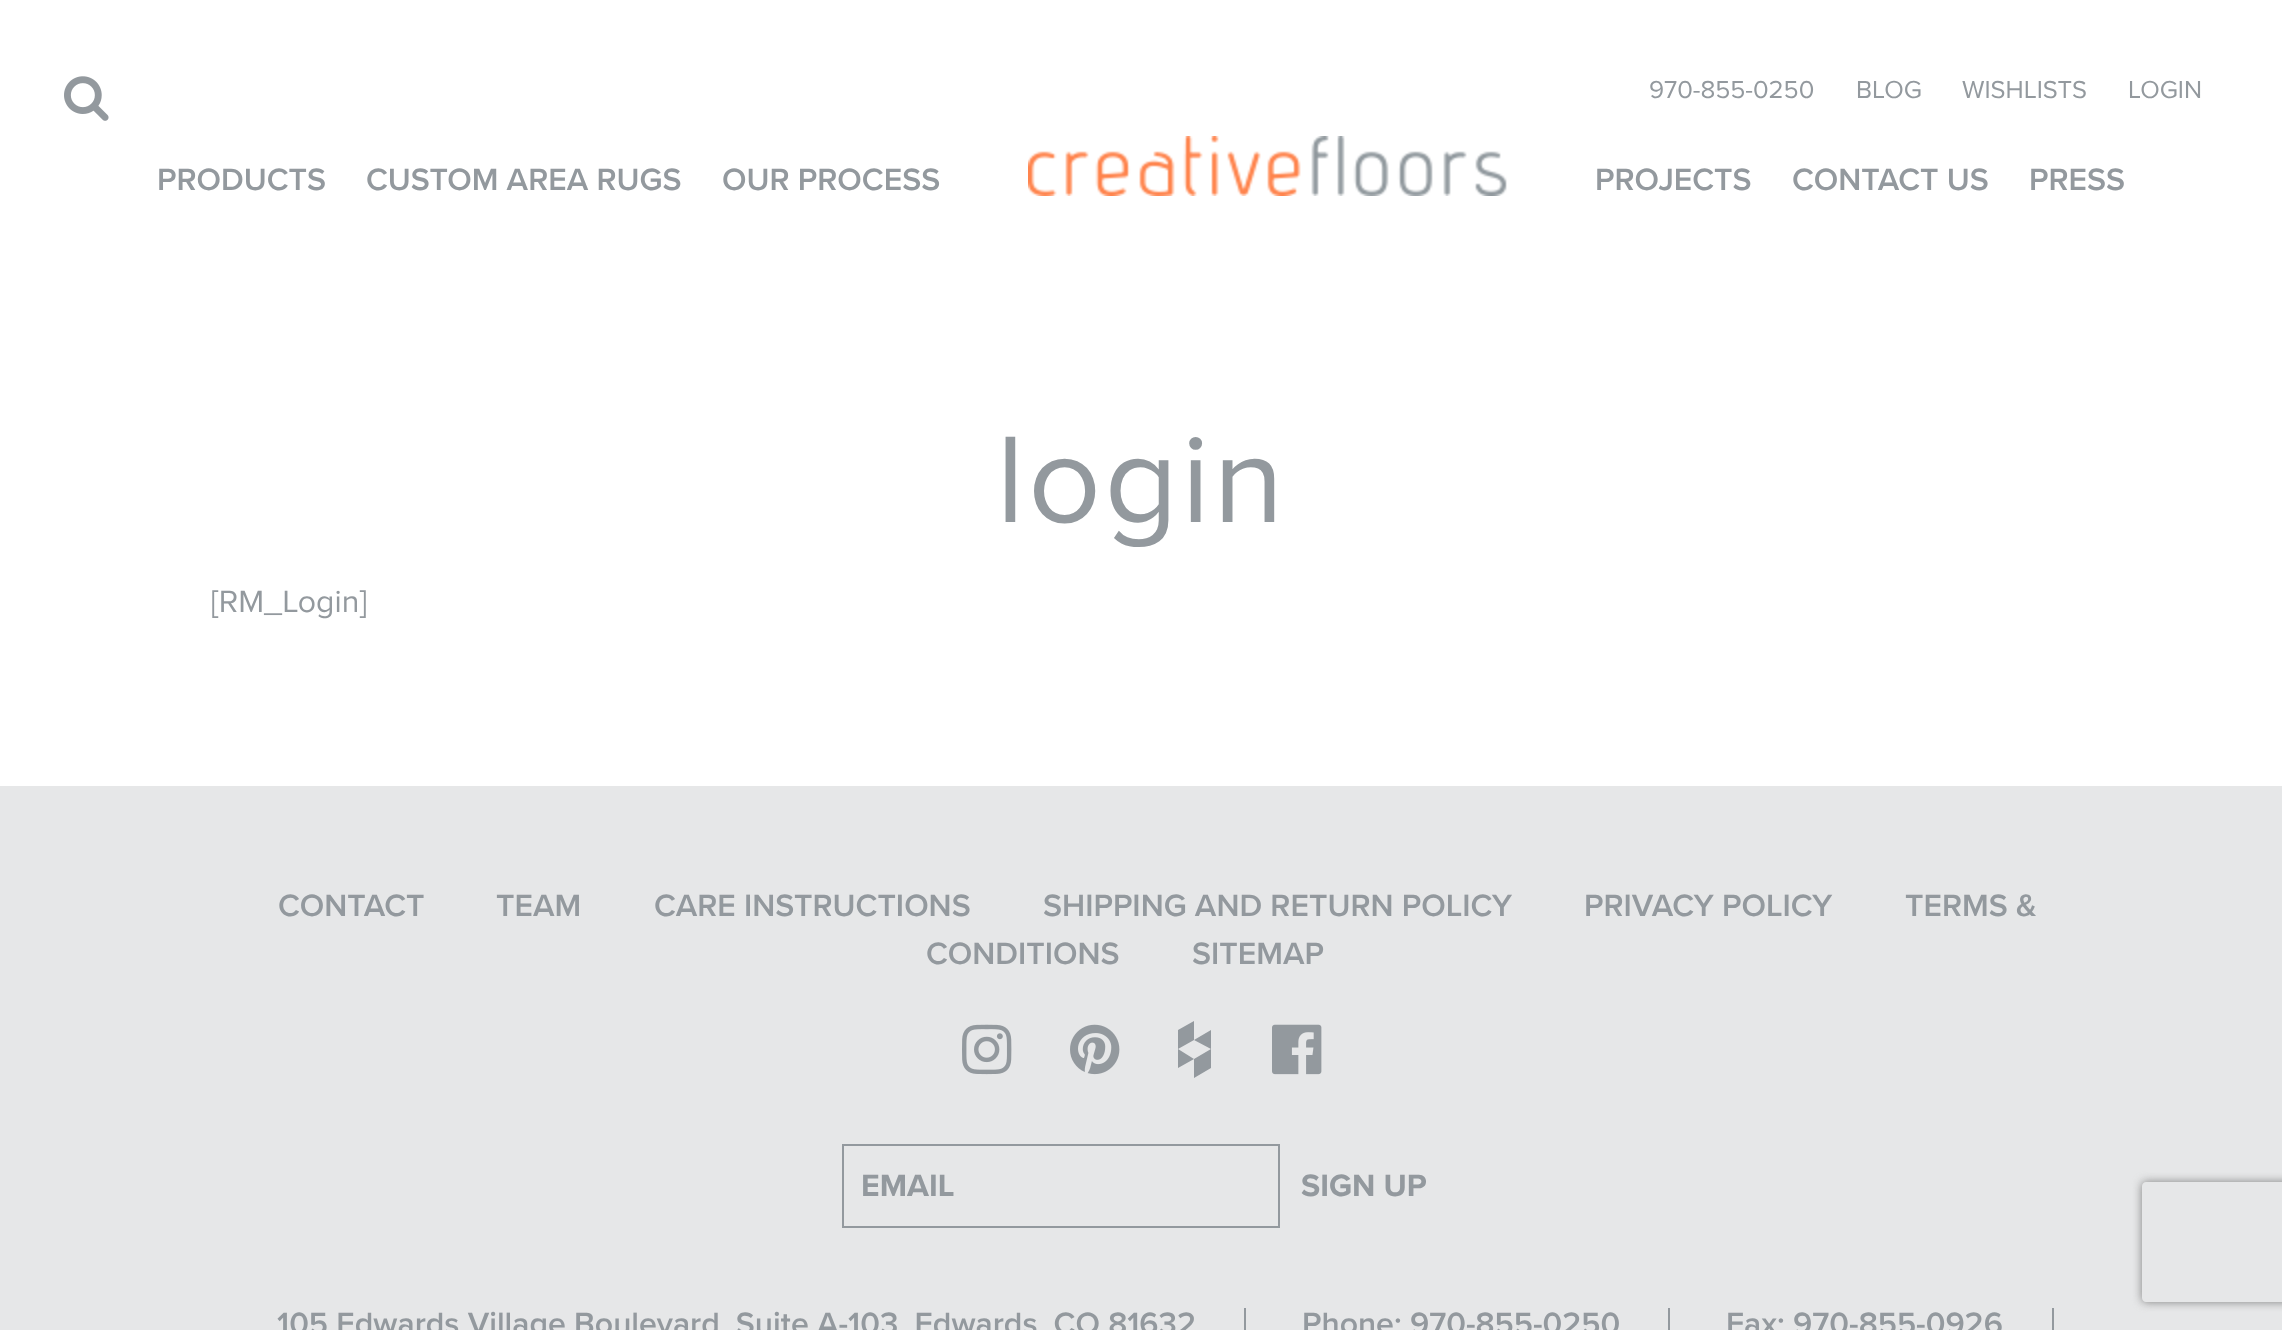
<svg xmlns="http://www.w3.org/2000/svg" width="2282" height="1330" viewBox="0 0 2282 1330">
  <style>
    .t1 { font: 25.5px Proxima Nova; fill: #93999e; }
    .t2 { font: 600 32px Proxima Nova; fill: #93999e; }
    .t3 { font: 128px Proxima Nova; letter-spacing: 3.25px; fill: #93999e; }
    .t4 { font: 32px Proxima Nova; fill: #93999e; }
    .t5 { font: bold 32px Proxima Nova; fill: #93999e; }
  </style>
  <defs>
    <clipPath id="clip1"><path d="M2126 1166H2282V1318H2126ZM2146 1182H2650C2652 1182 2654 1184 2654 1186V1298C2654 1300 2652 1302 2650 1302H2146C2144 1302 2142 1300 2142 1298V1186C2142 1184 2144 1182 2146 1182Z" clip-rule="evenodd"/></clipPath>
  </defs>
  <rect width="100%" height="100%" fill="#fff"/>
  <image x="64" y="76" width="45" height="45" href="images/1.png"/>
  <text x="1649" y="98" class="t1">970-855-0250</text>
  <text x="1856" y="98" class="t1">BLOG</text>
  <text x="1962" y="98" class="t1">WISHLISTS</text>
  <text x="2128" y="98" class="t1">LOGIN</text>
  <text x="157" y="190" class="t2">PRODUCTS</text>
  <text x="366" y="190" class="t2">CUSTOM AREA RUGS</text>
  <text x="722" y="190" class="t2">OUR PROCESS</text>
  <image x="1028" y="136" width="479" height="60" href="images/2.png"/>
  <text x="1595" y="190" class="t2">PROJECTS</text>
  <text x="1792" y="190" class="t2">CONTACT US</text>
  <text x="2029" y="190" class="t2">PRESS</text>
  <text x="996" y="522" class="t3">login</text>
  <text x="211" y="612" class="t4">[RM_Login]</text>
  <rect x="0" y="786" width="2282" height="544" fill="#e6e7e8"/>
  <text x="278" y="916" class="t2">CONTACT</text>
  <text x="496" y="916" class="t2">TEAM</text>
  <text x="654" y="916" class="t2">CARE INSTRUCTIONS</text>
  <text x="1043" y="916" class="t2">SHIPPING AND RETURN POLICY</text>
  <text x="1584" y="916" class="t2">PRIVACY POLICY</text>
  <text x="1905" y="916" class="t2">TERMS &amp;</text>
  <text x="926" y="964" class="t2">CONDITIONS</text>
  <text x="1192" y="964" class="t2">SITEMAP</text>
  <image x="962" y="1024" width="50" height="51" href="images/3.png"/>
  <image x="1070" y="1024" width="50" height="51" href="images/4.png"/>
  <path d="M1194 1059L1211 1049V1068L1194 1078ZM1178 1049V1068L1194 1059ZM1194 1021V1040L1178 1049V1030ZM1194 1040L1211 1030V1049Z" fill="#93999e"/>
  <image x="1272" y="1024" width="50" height="51" href="images/5.png"/>
  <rect x="843" y="1145" width="436" height="82" fill="none" stroke="#93999e" stroke-width="2"/>
  <text x="861" y="1196" class="t5">EMAIL</text>
  <text x="1301" y="1196" class="t5">SIGN UP</text>
  <rect x="1244" y="1308" width="2" height="22" fill="#93999e"/>
  <text x="277" y="1334" class="t2">105 Edwards Village Boulevard, Suite A-103, Edwards, CO 81632</text>
  <rect x="1668" y="1308" width="2" height="22" fill="#93999e"/>
  <text x="1302" y="1334" class="t2">Phone: 970-855-0250</text>
  <rect x="2052" y="1308" width="2" height="22" fill="#93999e"/>
  <text x="1726" y="1334" class="t2">Fax: 970-855-0926</text>
  <g clip-path="url(#clip1)">
    <rect x="2142" y="1182" width="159" height="120" rx="4" fill="#808080" filter="blur(5px)"/>
  </g>
</svg>
